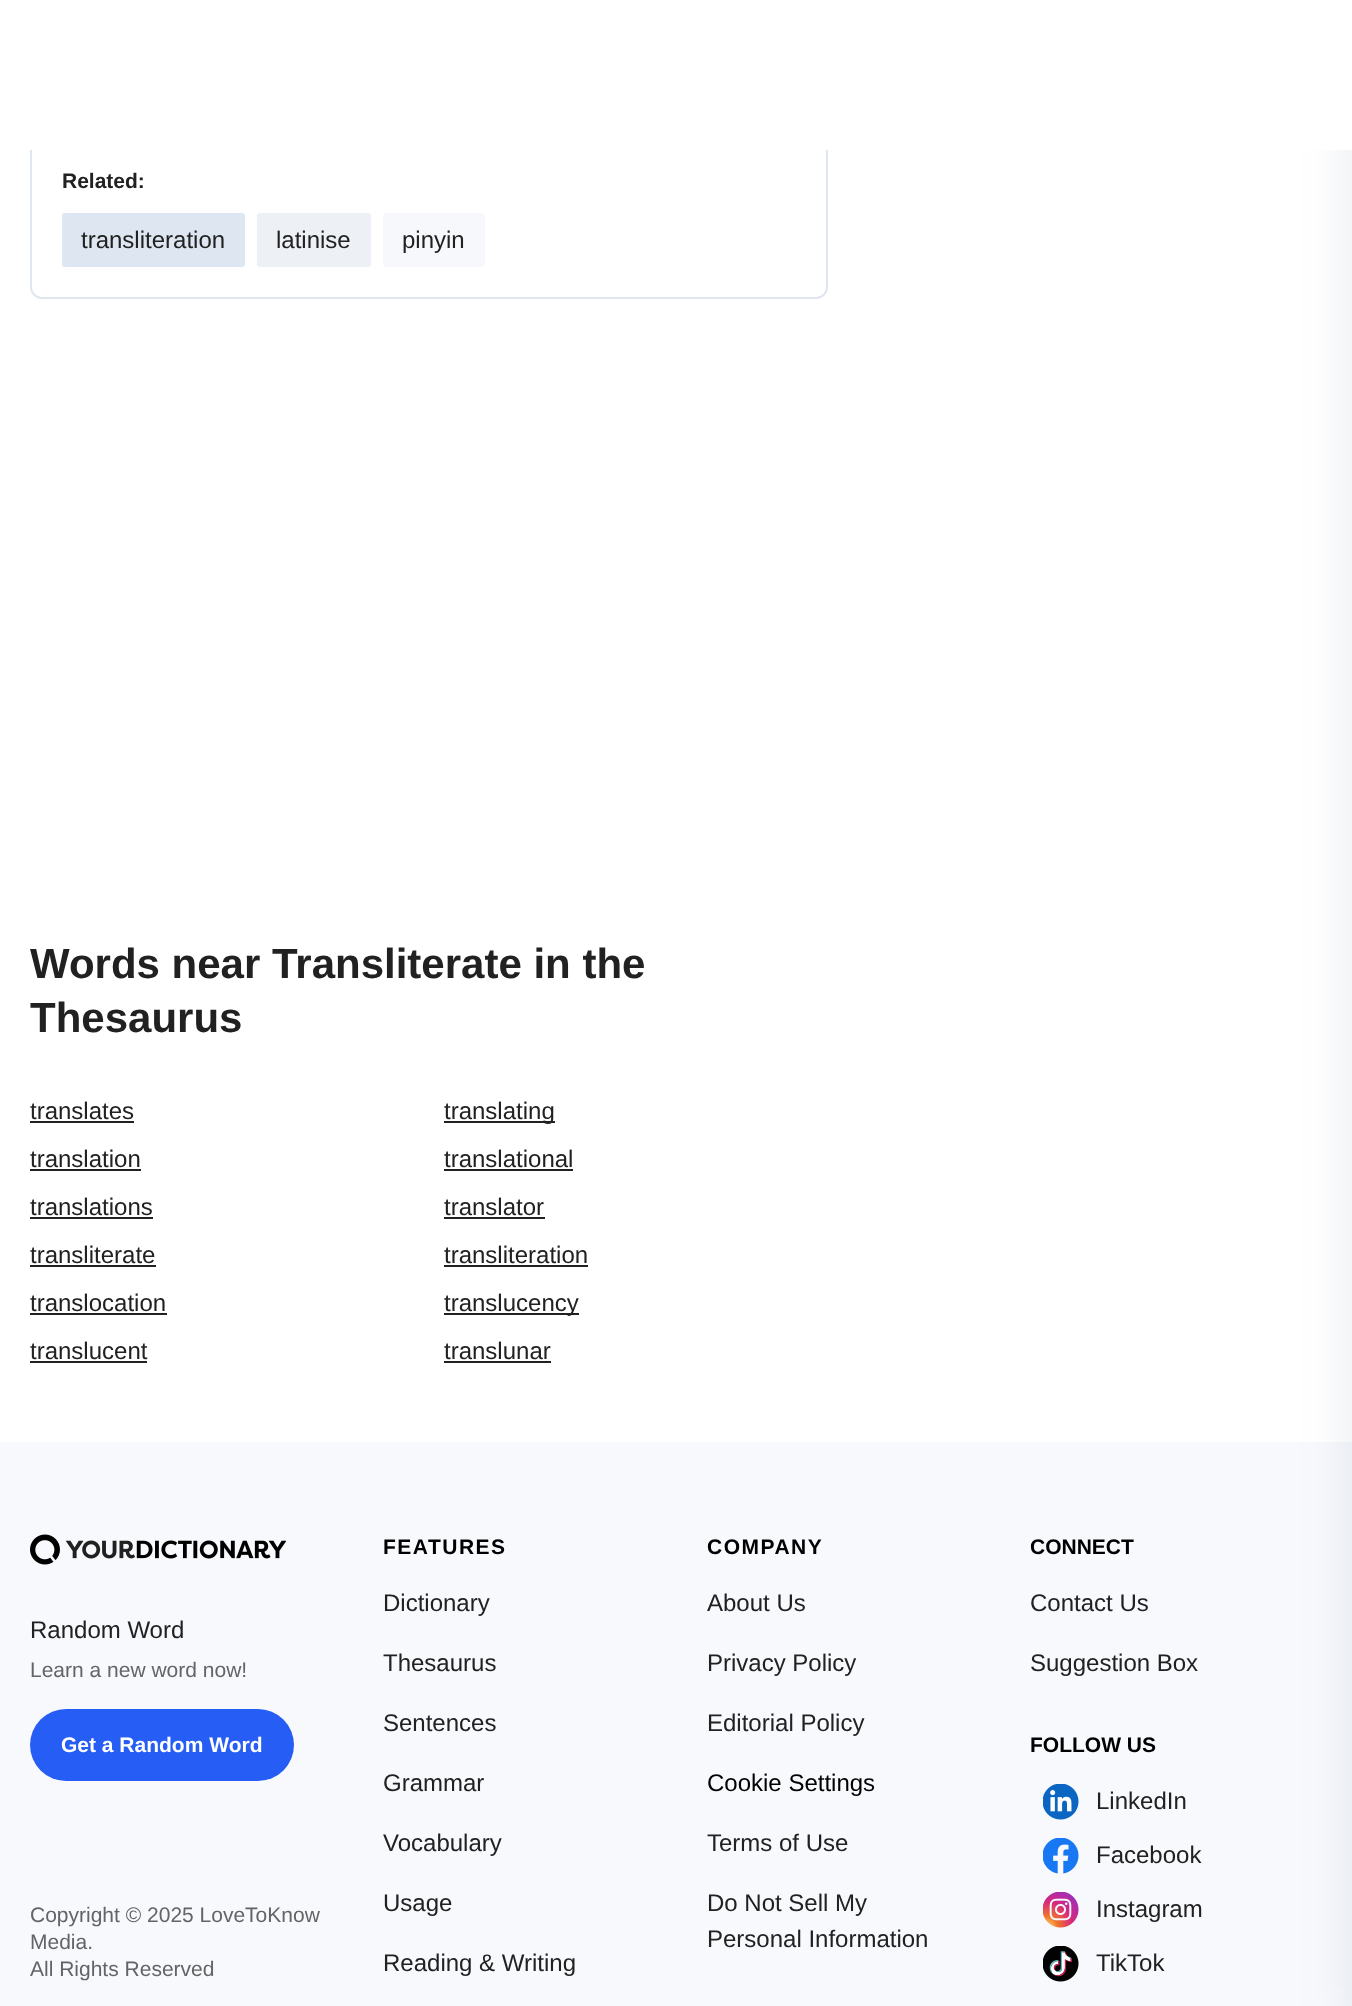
<svg xmlns="http://www.w3.org/2000/svg" width="1352" height="2006" viewBox="0 0 1352 2006">
  <style>
    .t1 { font: bold 21px Liberation Sans; fill: #212121; }
    .t2 { font: 24px Liberation Sans; fill: #212121; }
    .t3 { font: bold 42px Liberation Sans; fill: #212121; }
    .t4 { font: 21px Liberation Sans; fill: #636465; }
    .t5 { font: bold 21px Liberation Sans; fill: #fff; }
    .t6 { font: bold 21px Liberation Sans; letter-spacing: 1.5px; fill: #000; }
    .t7 { font: 24px Liberation Sans; fill: #000; }
    .t8 { font: bold 21px Liberation Sans; fill: #000; }
  </style>
  <rect width="100%" height="100%" fill="#fff"/>
  <rect x="31" y="135" width="796" height="163" rx="11" fill="none" stroke="#dfe6ef" stroke-width="2"/>
  <rect x="0" y="1442" width="1352" height="564" fill="#f8f9fd"/>
  <rect x="1346" y="2" width="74" height="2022" fill="#546e7a1f" filter="blur(22.5px)"/>
  <rect x="30" y="0" width="1322" height="150" fill="#fff"/>
  <text x="62" y="188" class="t1">Related:</text>
  <rect x="63" y="214" width="181" height="52" rx="2" fill="#dee7f1" stroke="#dee7f1" stroke-width="2"/>
  <text x="81" y="248" class="t2">transliteration</text>
  <rect x="258" y="214" width="112" height="52" rx="2" fill="#edf1f6" stroke="#edf1f6" stroke-width="2"/>
  <text x="276" y="248" class="t2">latinise</text>
  <rect x="383" y="213" width="102" height="54" rx="3" fill="#f6f8fb"/>
  <text x="402" y="248" class="t2">pinyin</text>
  <text x="30" y="978" class="t3">Words near Transliterate in the</text>
  <text x="30" y="1032" class="t3">Thesaurus</text>
  <text x="30" y="1119" class="t2">translates</text>
  <rect x="30" y="1121" width="104" height="2" fill="#212121"/>
  <rect x="444" y="1121" width="111" height="2" fill="#212121"/>
  <text x="444" y="1119" class="t2">translating</text>
  <text x="30" y="1167" class="t2">translation</text>
  <rect x="30" y="1169" width="111" height="2" fill="#212121"/>
  <text x="444" y="1167" class="t2">translational</text>
  <rect x="444" y="1169" width="129" height="2" fill="#212121"/>
  <text x="30" y="1215" class="t2">translations</text>
  <rect x="30" y="1217" width="123" height="2" fill="#212121"/>
  <text x="444" y="1215" class="t2">translator</text>
  <rect x="444" y="1217" width="101" height="2" fill="#212121"/>
  <text x="30" y="1263" class="t2">transliterate</text>
  <rect x="30" y="1265" width="126" height="2" fill="#212121"/>
  <text x="444" y="1263" class="t2">transliteration</text>
  <rect x="444" y="1265" width="144" height="2" fill="#212121"/>
  <text x="30" y="1311" class="t2">translocation</text>
  <rect x="30" y="1313" width="137" height="2" fill="#212121"/>
  <rect x="444" y="1313" width="135" height="2" fill="#212121"/>
  <text x="444" y="1311" class="t2">translucency</text>
  <text x="30" y="1359" class="t2">translucent</text>
  <rect x="30" y="1361" width="117" height="2" fill="#212121"/>
  <text x="444" y="1359" class="t2">translunar</text>
  <rect x="444" y="1361" width="107" height="2" fill="#212121"/>
  <image x="30" y="1534" width="257" height="31" href="images/1.png"/>
  <text x="30" y="1638" class="t2">Random Word</text>
  <text x="30" y="1677" class="t4">Learn a new word now!</text>
  <rect x="30" y="1709" width="264" height="72" rx="36" fill="#265ef5"/>
  <text x="61" y="1752" class="t5">Get a Random Word</text>
  <text x="30" y="1922" class="t4">Copyright © 2025 LoveToKnow</text>
  <text x="30" y="1949" class="t4">Media.</text>
  <text x="30" y="1976" class="t4">All Rights Reserved</text>
  <text x="383" y="1554" class="t6">FEATURES</text>
  <text x="383" y="1611" class="t2">Dictionary</text>
  <text x="383" y="1671" class="t2">Thesaurus</text>
  <text x="383" y="1731" class="t2">Sentences</text>
  <text x="383" y="1791" class="t2">Grammar</text>
  <text x="383" y="1851" class="t2">Vocabulary</text>
  <text x="383" y="1911" class="t2">Usage</text>
  <text x="383" y="1971" class="t2">Reading &amp; Writing</text>
  <text x="707" y="1554" class="t6">COMPANY</text>
  <text x="707" y="1611" class="t2">About Us</text>
  <text x="707" y="1671" class="t2">Privacy Policy</text>
  <text x="707" y="1731" class="t2">Editorial Policy</text>
  <text x="707" y="1791" class="t7">Cookie Settings</text>
  <text x="707" y="1851" class="t2">Terms of Use</text>
  <text x="707" y="1911" class="t2">Do Not Sell My</text>
  <text x="707" y="1947" class="t2">Personal Information</text>
  <text x="1030" y="1554" class="t8">CONNECT</text>
  <text x="1030" y="1611" class="t2">Contact Us</text>
  <text x="1030" y="1671" class="t2">Suggestion Box</text>
  <text x="1030" y="1752" class="t8">FOLLOW US</text>
  <image x="1043" y="1784" width="36" height="36" href="images/2.png"/>
  <text x="1096" y="1809" class="t2">LinkedIn</text>
  <image x="1043" y="1838" width="36" height="36" href="images/3.png"/>
  <text x="1096" y="1863" class="t2">Facebook</text>
  <image x="1043" y="1892" width="36" height="36" href="images/4.png"/>
  <text x="1096" y="1917" class="t2">Instagram</text>
  <image x="1043" y="1946" width="36" height="36" href="images/5.png"/>
  <text x="1096" y="1971" class="t2">TikTok</text>
</svg>
